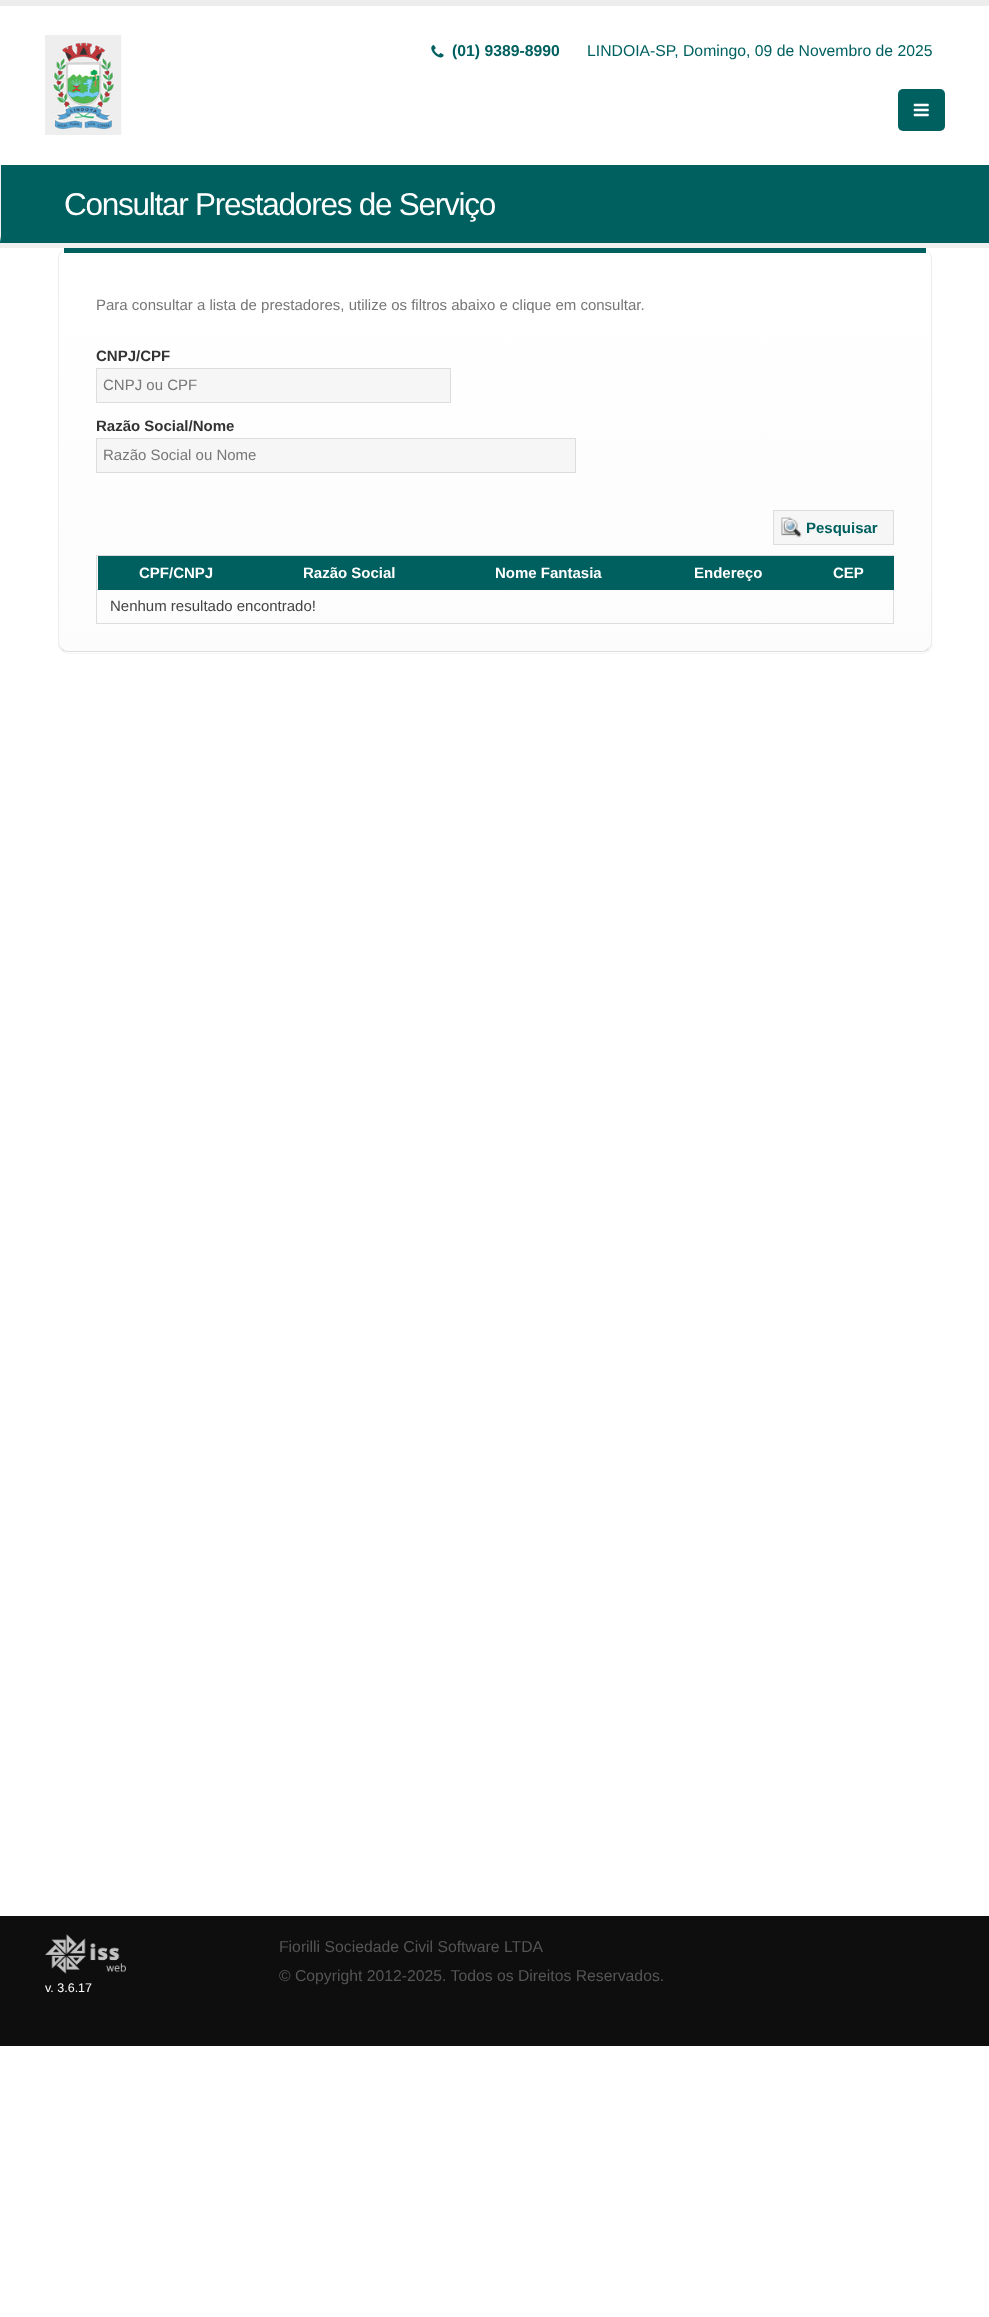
<svg xmlns="http://www.w3.org/2000/svg" width="989" height="2317" viewBox="0 0 989 2317">
  <style>
    .t1 { font: bold 15.75px Liberation Sans; fill: #006060; }
    .t2 { font: 15.75px Liberation Sans; fill: #006060; }
    .t3 { font: 31.5px Liberation Sans; letter-spacing: -1.25px; fill: #fff; }
    .t4 { font: 15px Liberation Sans; fill: #777; }
    .t5 { font: bold 15px Liberation Sans; fill: #333; }
    .t6 { font: bold 15px Liberation Sans; fill: #006060; }
    .t7 { font: bold 15px Liberation Sans; fill: #fff; }
    .t8 { font: 15px Liberation Sans; fill: #444; }
    .t9 { font: 15.75px Liberation Sans; fill: #555; }
    .t10 { font: 12.5px Liberation Sans; fill: #fff; }
  </style>
  <defs>
    <clipPath id="clip1"><rect x="58" y="249" width="875" height="404" rx="10"/></clipPath>
    <linearGradient id="g1" gradientUnits="userSpaceOnUse" x1="495" y1="249" x2="495" y2="651"><stop offset="0.01" stop-color="#fff"/><stop offset="0.98" stop-color="#fcfcfc"/></linearGradient>
    <linearGradient id="g2" gradientUnits="userSpaceOnUse" x1="495" y1="651" x2="495" y2="1054"><stop offset="0.01" stop-color="#fff"/><stop offset="0.98" stop-color="#fcfcfc"/></linearGradient>
  </defs>
  <rect width="100%" height="100%" fill="#fff"/>
  <rect x="0" y="0" width="989" height="6" fill="#ededed"/>
  <image x="45" y="35" width="77" height="100" href="images/1.png"/>
  <image x="431" y="45" width="13" height="13" href="images/2.png"/>
  <text x="452" y="56" class="t1">(01) 9389-8990</text>
  <text x="587" y="56" class="t2">LINDOIA-SP, Domingo, 09 de Novembro de 2025</text>
  <rect x="898" y="89" width="47" height="42" rx="5" fill="#006060"/>
  <image x="913" y="103" width="16" height="14" href="images/3.png"/>
  <path d="M0 242V248H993V168H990V242Z" fill="#f0f0f0"/>
  <rect x="0" y="165" width="989" height="78" fill="#006060"/>
  <path d="M0 242V165H1V236Z" fill="#f0f0f0"/>
  <text x="64" y="215" class="t3">Consultar Prestadores de Serviço</text>
  <rect x="58" y="250" width="875" height="404" rx="10" fill="#0000000a" filter="blur(0.5px)"/>
  <g clip-path="url(#clip1)">
    <path d="M68 249H923C928.5 249 933 253.5 933 259V651H58V259C58 253.5 62.5 249 68 249Z" fill="url(#g1)"/>
    <rect x="58" y="651" width="875" height="2" fill="url(#g2)"/>
  </g>
  <path d="M929 649C931 648 932 645 932 642V259C932 253 928 249 922 249C927 249 931 253 931 259V642C931 644 930 647 928 648Z" fill="#ececec"/>
  <path d="M62 648C63 650 66 651 68 651H922C924 651 927 650 928 648L929 649C928 651 925 652 922 652H68C65 652 62 651 61 649Z" fill="#dfdfdf"/>
  <path d="M68 249C63 249 59 253 59 259V642C59 644 60 647 62 648L61 649C59 648 58 645 58 642V259C58 253 62 249 68 249Z" fill="#ececec"/>
  <rect x="64" y="248" width="862" height="5" fill="#006060"/>
  <text x="96" y="310" class="t4">Para consultar a lista de prestadores, utilize os filtros abaixo e clique em consultar.</text>
  <text x="96" y="361" class="t5">CNPJ/CPF</text>
  <rect x="96.5" y="368.5" width="354" height="34" fill="#f6f6f6" stroke="#ddd"/>
  <text x="103" y="390" class="t4">CNPJ ou CPF</text>
  <text x="96" y="431" class="t5">Razão Social/Nome</text>
  <rect x="96.5" y="438.5" width="479" height="34" fill="#f6f6f6" stroke="#ddd"/>
  <text x="103" y="460" class="t4">Razão Social ou Nome</text>
  <rect x="773.5" y="510.5" width="120" height="34" fill="#f6f6f6" stroke="#ddd"/>
  <image x="781" y="517" width="21" height="21" href="images/4.png"/>
  <text x="806" y="533" class="t6">Pesquisar</text>
  <rect x="96" y="555" width="798" height="1" fill="#ddd"/>
  <rect x="96" y="589" width="2" height="1" fill="#ddd"/>
  <rect x="893" y="589" width="1" height="35" fill="#ddd"/>
  <rect x="96" y="623" width="798" height="1" fill="#ddd"/>
  <rect x="96" y="589" width="1" height="35" fill="#ddd"/>
  <rect x="96" y="555" width="1" height="35" fill="#ddd"/>
  <rect x="98" y="556" width="796" height="34" fill="#006060"/>
  <text x="139" y="578" class="t7">CPF/CNPJ</text>
  <text x="303" y="578" class="t7">Razão Social</text>
  <text x="495" y="578" class="t7">Nome Fantasia</text>
  <text x="694" y="578" class="t7">Endereço</text>
  <text x="833" y="578" class="t7">CEP</text>
  <text x="110" y="611" class="t8">Nenhum resultado encontrado!</text>
  <rect x="0" y="1916" width="989" height="130" fill="#0e0e0e"/>
  <text x="279" y="1952" class="t9">Fiorilli Sociedade Civil Software LTDA</text>
  <text x="279" y="1981" class="t9">© Copyright 2012-2025. Todos os Direitos Reservados.</text>
  <image x="45" y="1934" width="81" height="40" href="images/5.png"/>
  <text x="45" y="1992" class="t10">v. 3.6.17</text>
</svg>
